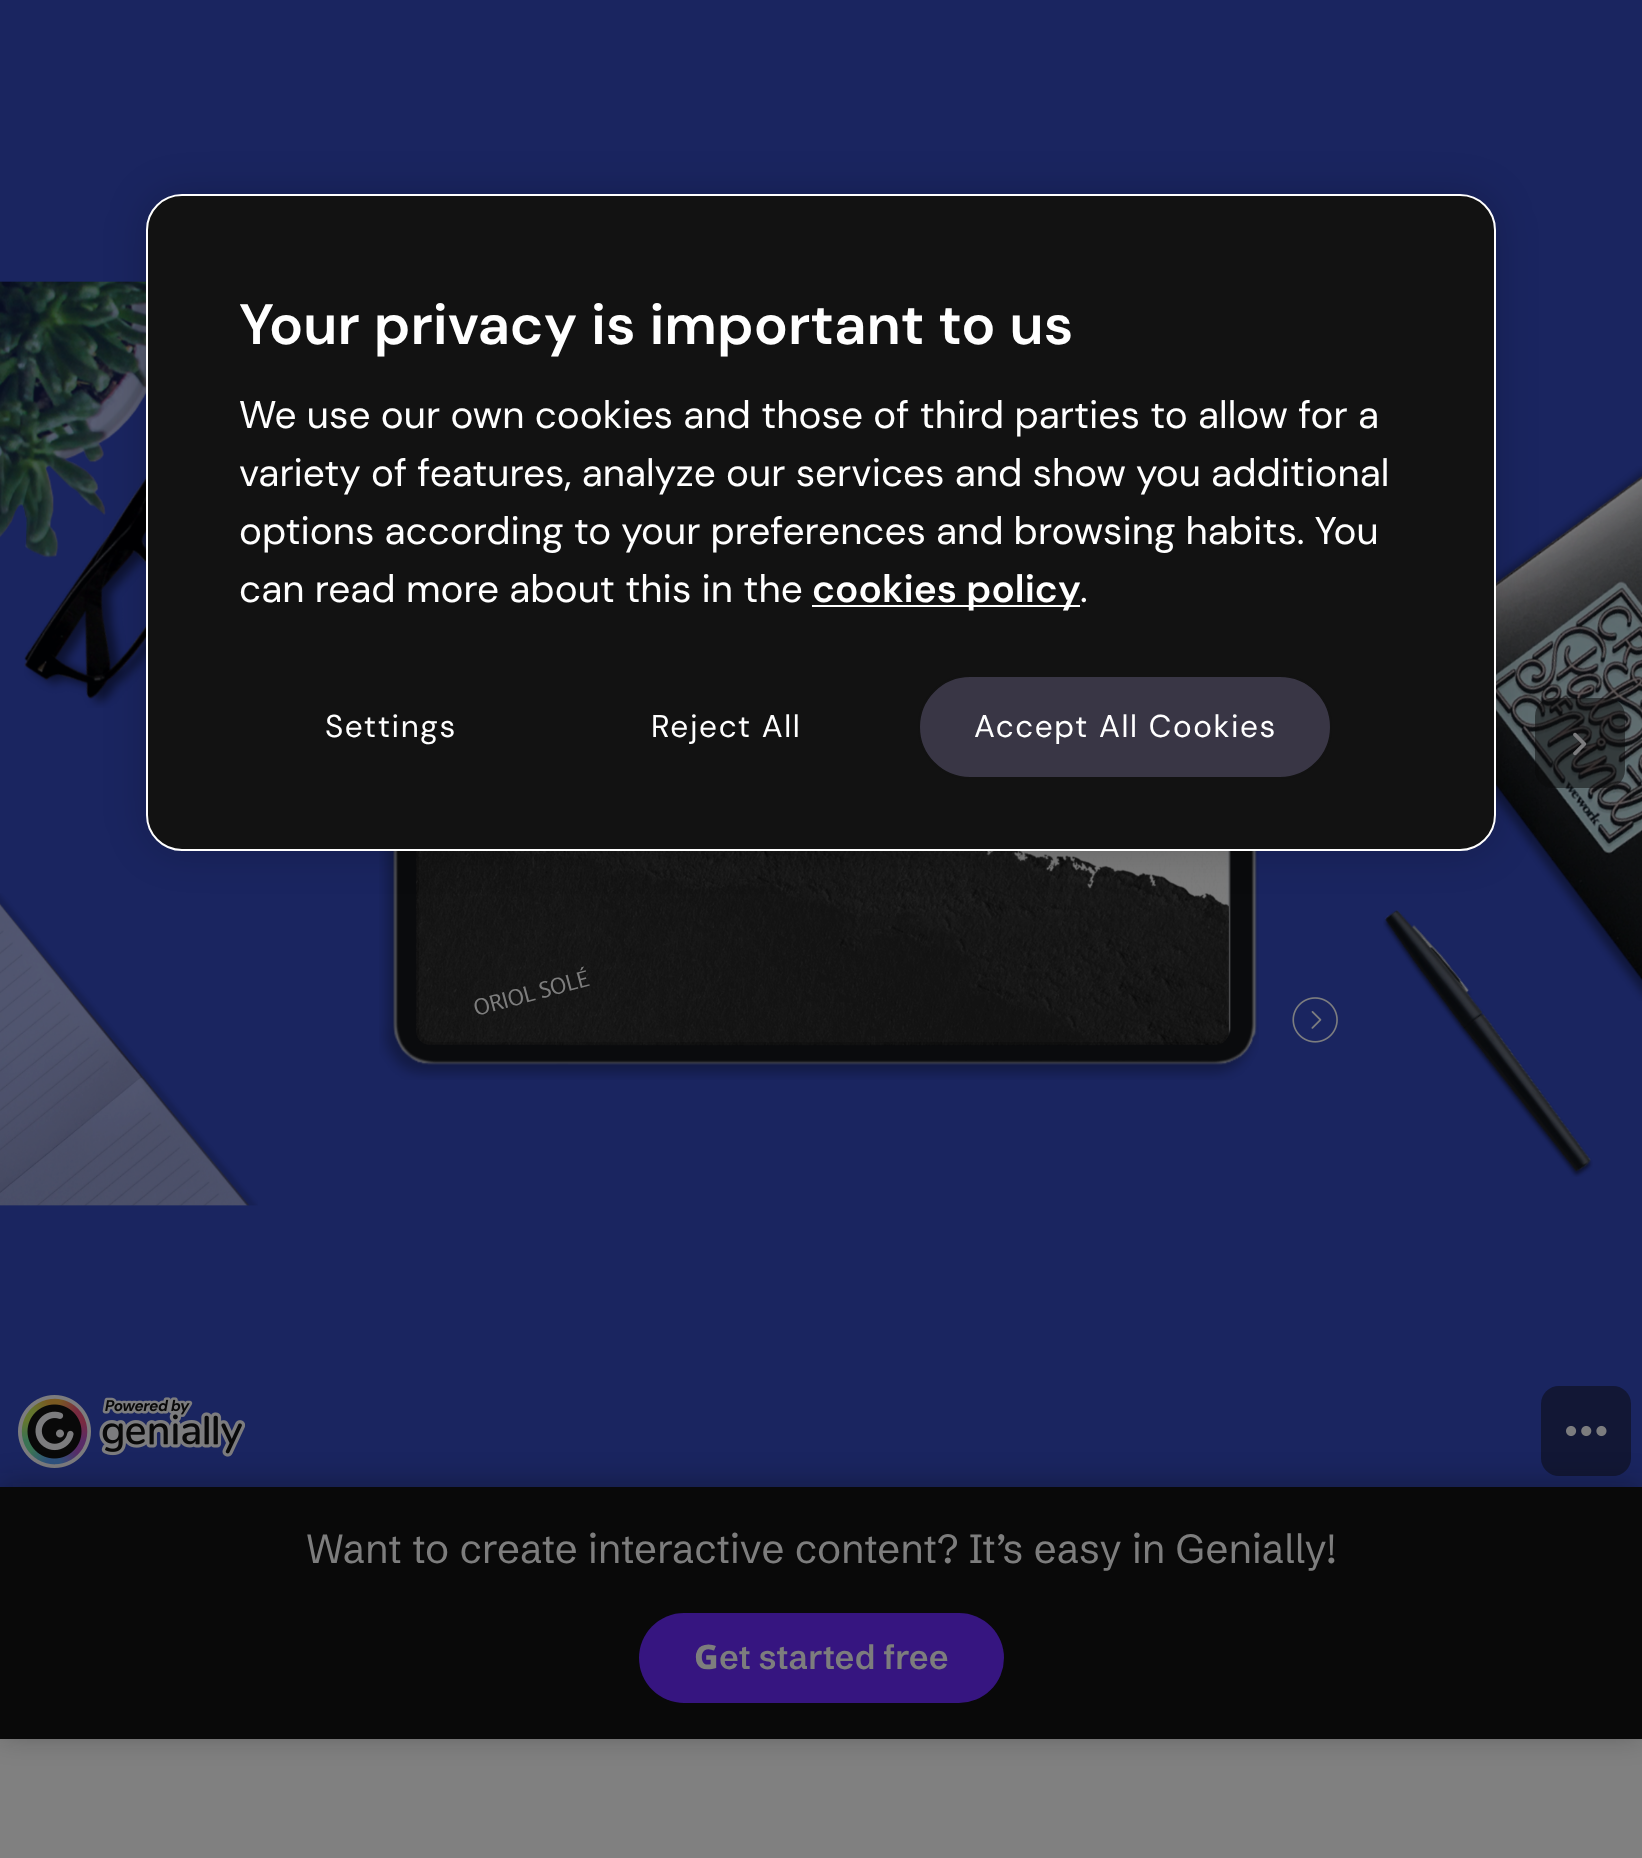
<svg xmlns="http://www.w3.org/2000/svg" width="1642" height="1858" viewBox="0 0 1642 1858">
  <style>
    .t1 { font: 600 56.75px DM Sans; fill: #fff; }
    .t2 { font: 38.75px DM Sans; fill: #fff; }
    .t3 { font: 600 38.75px DM Sans; fill: #fff; }
    .t4 { font: 31.5px DM Sans; letter-spacing: 1.6px; fill: #fff; }
    .t5 { font: 22px Rosario; fill: #7d7d7d; }
    .t6 { font: 40.5px Schibsted Grotesk; fill: #7d7d7d; }
    .t7 { font: 800 33.75px Noto Sans; fill: #7d7d7d; }
    .t8 { font: 600 33.75px Schibsted Grotesk; fill: #7d7d7d; }
  </style>
  <rect width="100%" height="100%" fill="#808080"/>
  <rect x="0" y="0" width="1642" height="1487" fill="#1a2560"/>
  <image x="0" y="281" width="146" height="277" href="images/1.png"/>
  <image x="24" y="477" width="122" height="231" href="images/2.png"/>
  <image x="1496" y="466" width="146" height="535" href="images/3.png"/>
  <image x="379" y="851" width="880" height="229" href="images/4.png"/>
  <image x="418" y="851" width="809" height="192" href="images/5.png"/>
  <image x="0" y="893" width="258" height="313" href="images/6.png"/>
  <image x="416" y="851" width="813" height="195" href="images/7.png"/>
  <image x="1383" y="910" width="210" height="267" href="images/8.png"/>
  <rect x="1535" y="698" width="90" height="90" rx="18" fill="#09090980"/>
  <rect x="146" y="194" width="1350" height="657" rx="36" fill="#00000033" filter="blur(20px)"/>
  <rect x="147" y="195" width="1348" height="655" rx="35" fill="#121212" stroke="#fff" stroke-width="2"/>
  <text x="239" y="344" class="t1">Your privacy is important to us</text>
  <text x="239" y="428" class="t2">We use our own cookies and those of third parties to allow for a</text>
  <text x="239" y="486" word-spacing="-0.1" class="t2">variety of features, analyze our services and show you additional</text>
  <text x="239" y="544" word-spacing="-0.25" class="t2">options according to your preferences and browsing habits. You</text>
  <text x="239" y="602" class="t2">can read more about this in the</text>
  <rect x="812" y="605" width="268" height="2" fill="#fff"/>
  <text x="812" y="602" class="t3">cookies policy</text>
  <text x="1080" y="602" class="t2">.</text>
  <text x="325" y="737" class="t4">Settings</text>
  <text x="651" y="737" class="t4">Reject All</text>
  <rect x="919" y="676" width="412" height="102" rx="51" fill="#393645" stroke="#121212" stroke-width="2"/>
  <text x="974" y="737" class="t4">Accept All Cookies</text>
  <text x="476" y="1016" transform="rotate(-15 476 1016)" class="t5">ORIOL SOLÉ</text>
  <image x="1292" y="997" width="46" height="46" href="images/9.png"/>
  <image x="1573" y="732" width="14" height="24" href="images/10.png"/>
  <rect x="1541" y="1386" width="90" height="90" rx="18" fill="#121735"/>
  <image x="1566" y="1425" width="41" height="12" href="images/11.png"/>
  <image x="18" y="1395" width="227" height="73" href="images/12.png"/>
  <rect x="0" y="1483" width="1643" height="252" fill="#0909094d" filter="blur(14.5px)"/>
  <rect x="0" y="1487" width="1642" height="252" fill="#090909"/>
  <text x="306" y="1563" class="t6">Want to create interactive content? It’s easy in Genially!</text>
  <rect x="639" y="1613" width="365" height="90" rx="45" fill="#361580"/>
  <text x="694" y="1669" class="t7">G</text>
  <text x="719" y="1669" class="t8">et started free</text>
</svg>
